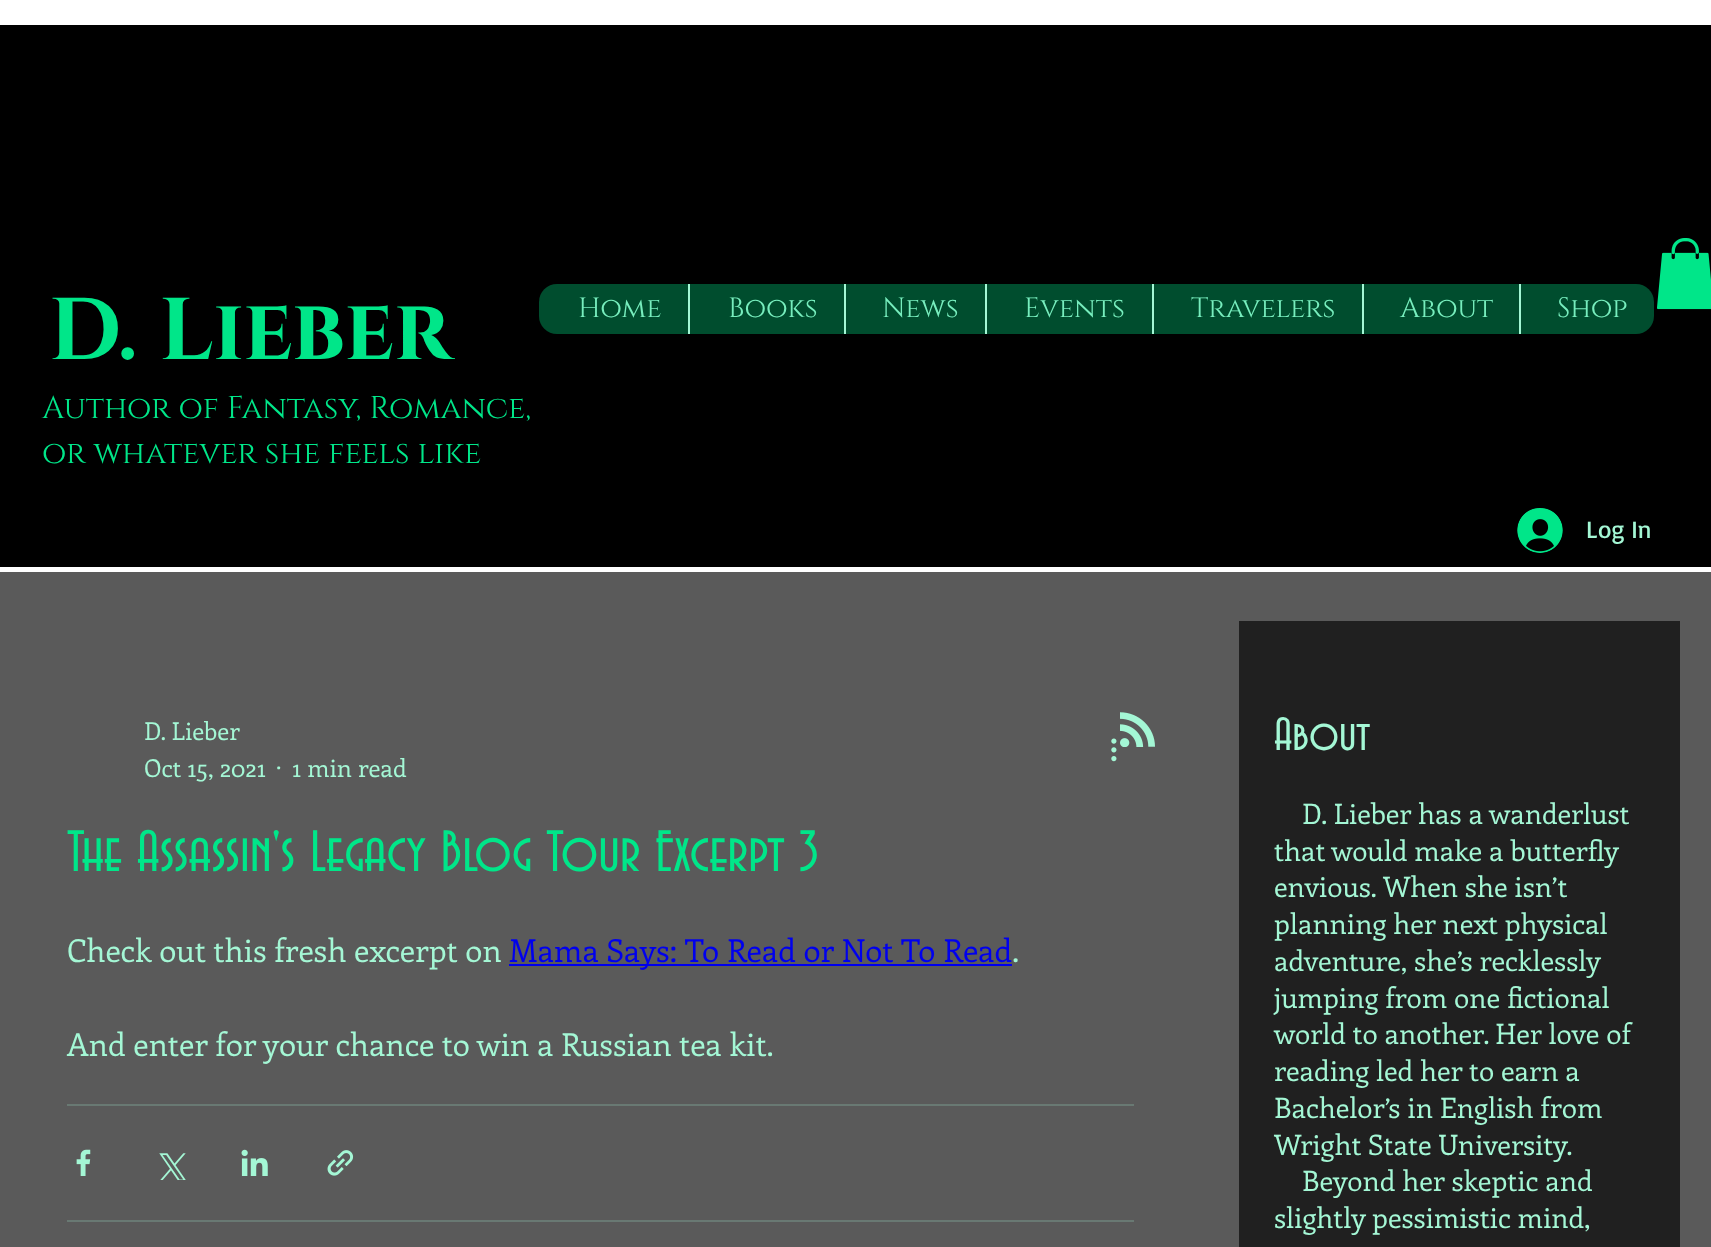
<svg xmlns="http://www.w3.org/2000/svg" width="1711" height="1247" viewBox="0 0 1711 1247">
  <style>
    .t1 { font: bold 87.5px Cinzel; fill: #00e689; }
    .t2 { font: 28px Cinzel; fill: #77eebe; }
    .t3 { font: 31.5px Cinzel; fill: #00e689; }
    .t4 { font: 24.5px Basic; fill: #a4f7d5; }
    .t5 { font: 24.5px Enriqueta; fill: #a4f7d5; }
    .t6 { font: 61.25px 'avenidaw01'; fill: #00e689; }
    .t7 { font: 31.5px Enriqueta; fill: #a4f7d5; }
    .t8 { font: 31.5px Enriqueta; fill: #00e; }
    .t9 { font: 49px 'avenidaw01'; fill: #a4f7d5; }
    .t10 { font: 28px Enriqueta; fill: #a4f7d5; }
  </style>
  <rect width="100%" height="100%" fill="#fff"/>
  <rect x="0" y="25" width="1711" height="542" fill="#000"/>
  <image x="1657" y="238" width="54" height="72" href="images/1.png"/>
  <text x="49" y="359" class="t1">D. Lie</text>
  <text x="292" y="359" class="t1">ber</text>
  <rect x="539" y="284" width="1115" height="50" rx="18" fill="#004d2e"/>
  <text x="578" y="317" class="t2">Home</text>
  <rect x="688" y="284" width="2" height="50" fill="#a4f7d5"/>
  <text x="728" y="317" class="t2">Books</text>
  <rect x="844" y="284" width="2" height="50" fill="#a4f7d5"/>
  <text x="882" y="317" class="t2">News</text>
  <rect x="985" y="284" width="2" height="50" fill="#a4f7d5"/>
  <text x="1024" y="317" class="t2">Events</text>
  <rect x="1152" y="284" width="2" height="50" fill="#a4f7d5"/>
  <text x="1191" y="317" class="t2">Travelers</text>
  <rect x="1362" y="284" width="2" height="50" fill="#a4f7d5"/>
  <text x="1400" y="317" class="t2">About</text>
  <rect x="1519" y="284" width="2" height="50" fill="#a4f7d5"/>
  <text x="1557" y="317" class="t2">Shop</text>
  <text x="42" y="418" class="t3">Author of Fantasy, Romance,</text>
  <text x="42" y="463" class="t3">or whatever she feels like</text>
  <image x="1517" y="508" width="46" height="45" href="images/2.png"/>
  <text x="1586" y="538" class="t4">Log In</text>
  <rect x="0" y="572" width="1711" height="675" fill="#5a5a5a"/>
  <image x="1120" y="712" width="35" height="35" href="images/3.png"/>
  <rect x="1239" y="621" width="441" height="626" fill="#202020"/>
  <text x="144" y="740" class="t5">D. Lieber</text>
  <text x="144" y="777" class="t5">Oct 15, 2021</text>
  <text x="276" y="777" class="t5">·</text>
  <text x="292" y="777" class="t5">1 min read</text>
  <image x="1111" y="738" width="6" height="24" href="images/4.png"/>
  <text x="67" y="871" class="t6">The Assassin's Legacy Blog Tour Excerpt 3</text>
  <text x="67" y="962" class="t7">Check out this fresh excerpt on</text>
  <rect x="509" y="964" width="503" height="2" fill="#00e"/>
  <text x="509" y="962" class="t8">Mama Says: To Read or Not To Read</text>
  <text x="1012" y="962" class="t7">.</text>
  <text x="67" y="1056" class="t7">And enter for your chance to win a Russian tea kit.</text>
  <rect x="67" y="1104" width="1067" height="2" fill="#697973"/>
  <image x="76" y="1149" width="15" height="27" href="images/5.png"/>
  <image x="159" y="1153" width="27" height="27" href="images/6.png"/>
  <image x="241" y="1149" width="27" height="27" href="images/7.png"/>
  <image x="327" y="1150" width="27" height="26" href="images/8.png"/>
  <rect x="67" y="1220" width="1067" height="2" fill="#697973"/>
  <text x="1274" y="750" class="t9">About</text>
  <text x="1302" y="824" class="t10">D. Lieber has a wanderlust</text>
  <text x="1274" y="861" class="t10">that would make a butterfly</text>
  <text x="1274" y="897" class="t10">envious. When she isn’t</text>
  <text x="1274" y="934" class="t10">planning her next physical</text>
  <text x="1274" y="971" class="t10">adventure, she’s recklessly</text>
  <text x="1274" y="1008" class="t10">jumping from one fictional</text>
  <text x="1274" y="1044" class="t10">world to another. Her love of</text>
  <text x="1274" y="1081" class="t10">reading led her to earn a</text>
  <text x="1274" y="1118" class="t10">Bachelor’s in English from</text>
  <text x="1274" y="1155" class="t10">Wright State University.</text>
  <text x="1302" y="1191" class="t10">Beyond her skeptic and</text>
  <text x="1274" y="1228" class="t10">slightly pessimistic mind,</text>
</svg>
